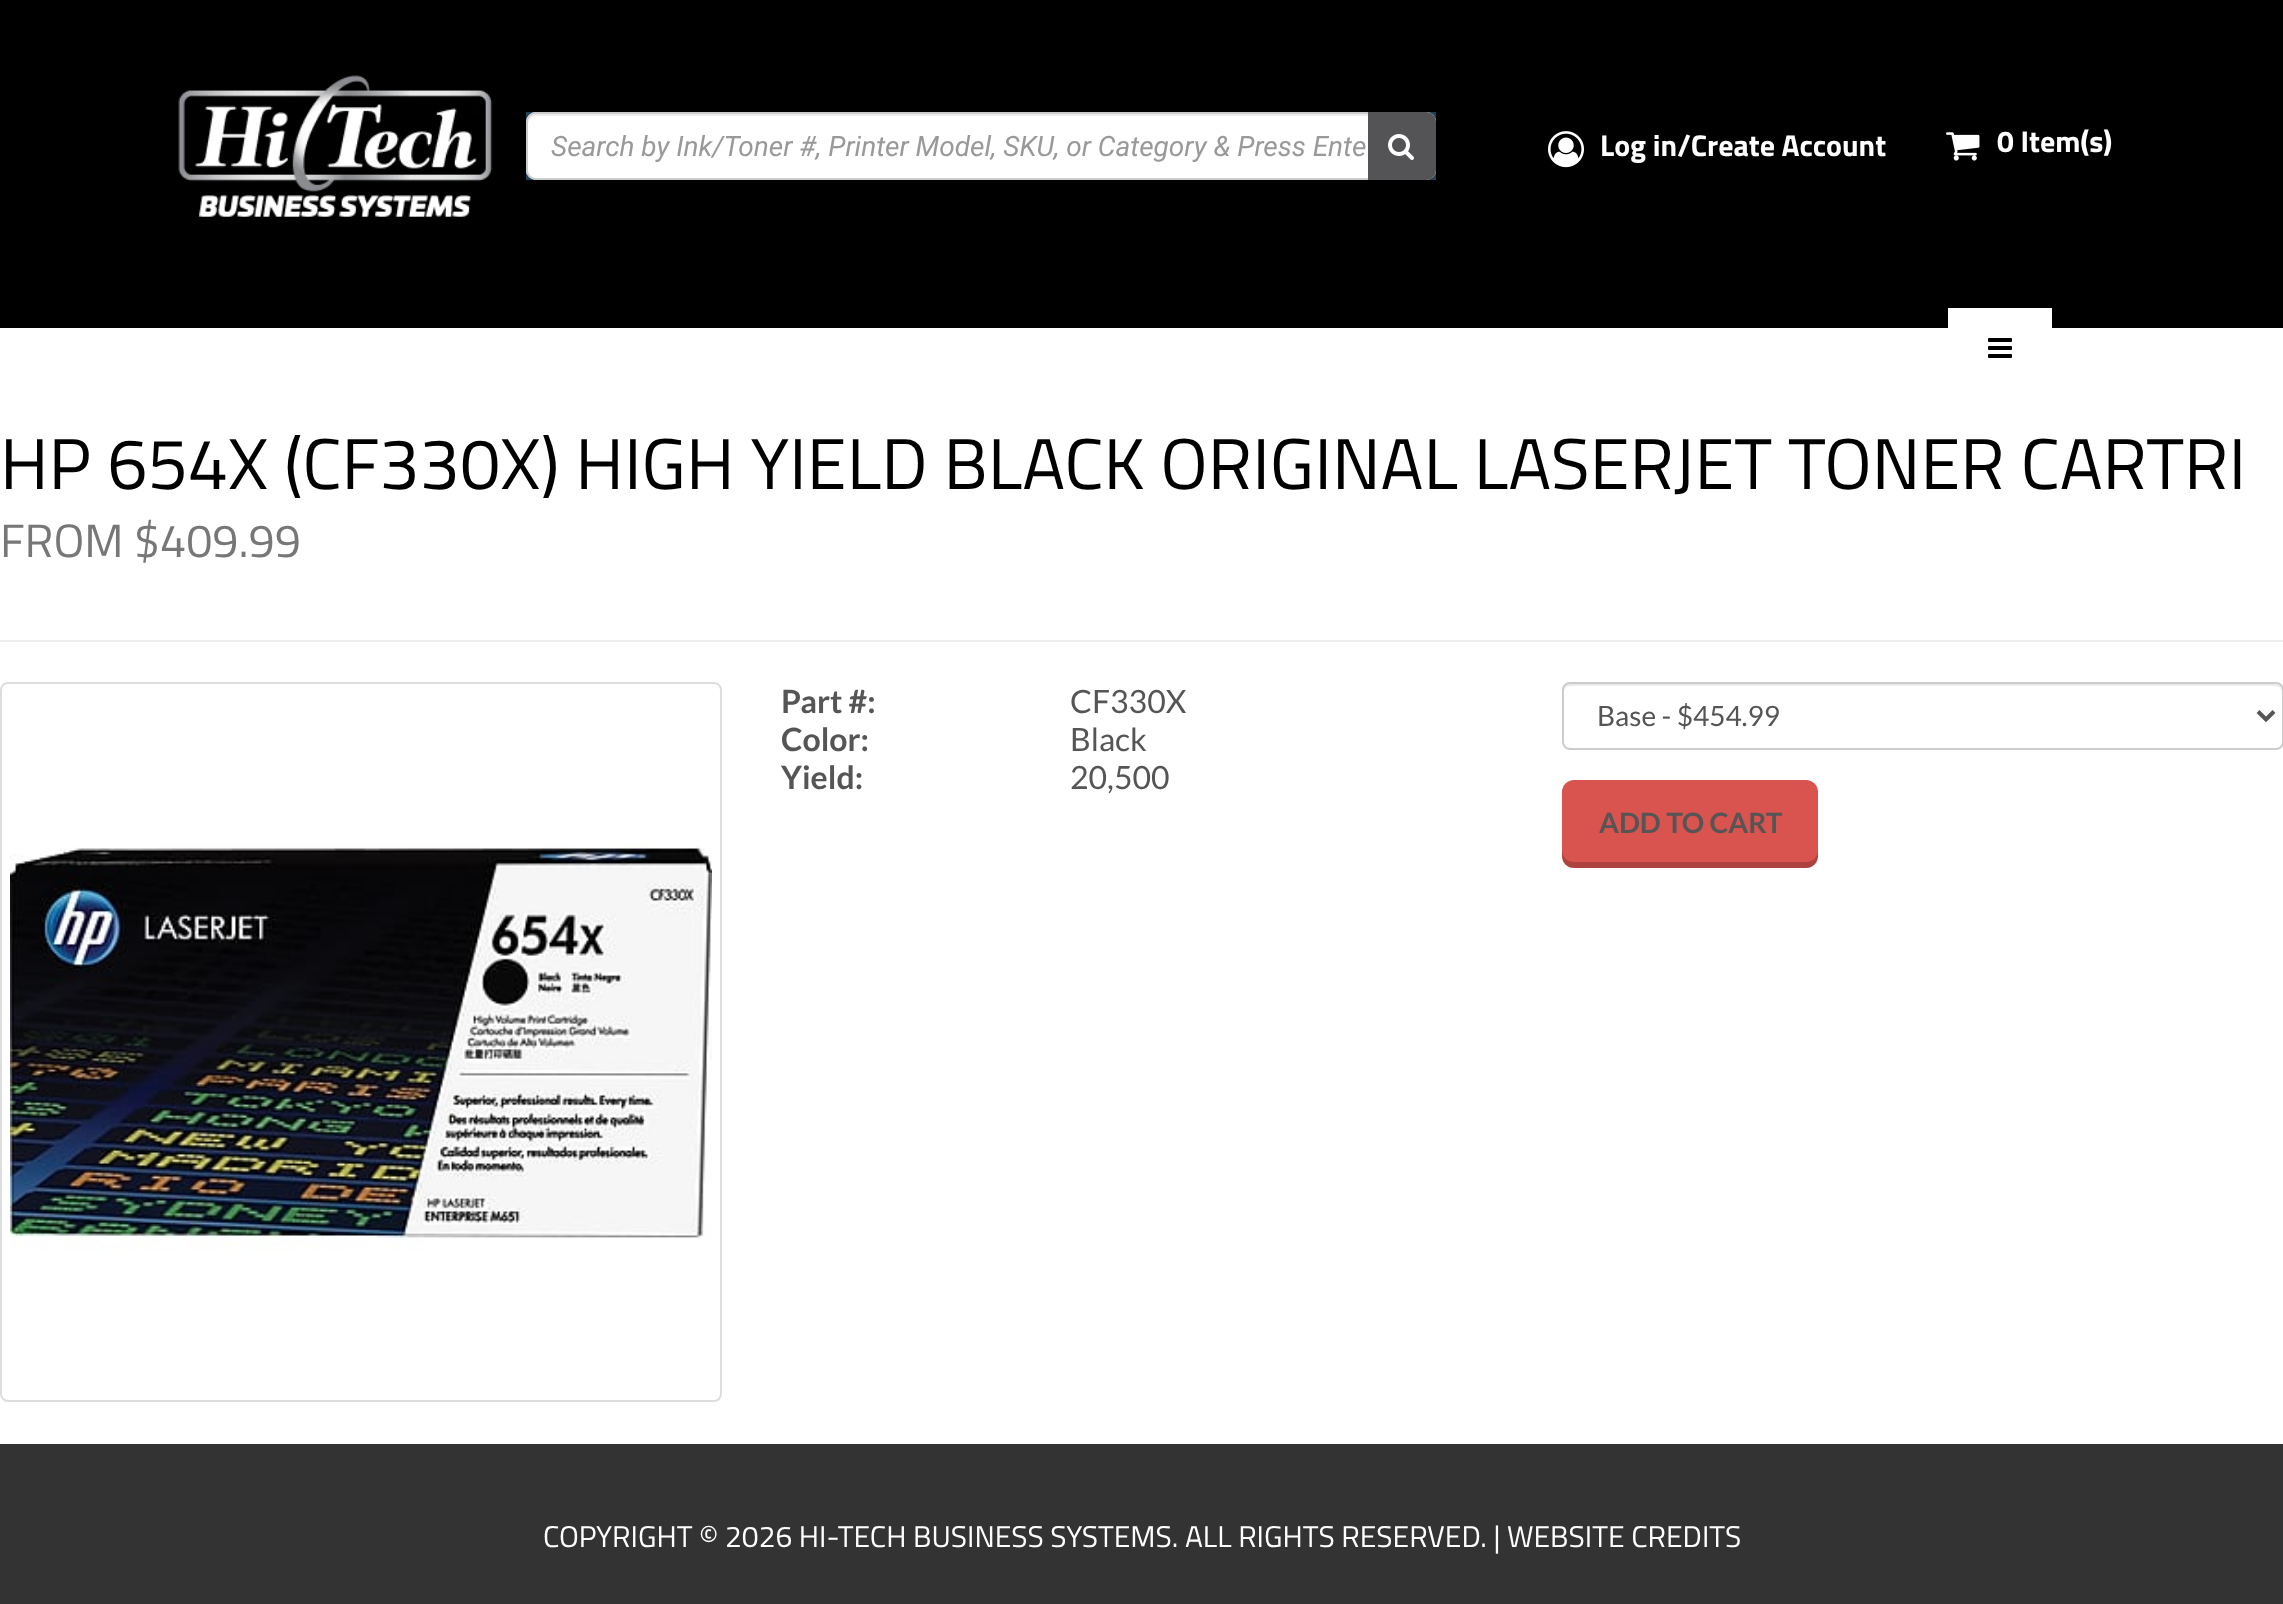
<svg xmlns="http://www.w3.org/2000/svg" width="2283" height="1604" viewBox="0 0 2283 1604">
  <style>
    .t1 { font: italic 28px Roboto; fill: #999; }
    .t2 { font: bold 30px Titillium Web; fill: #fff; }
    .t3 { font: 72px Titillium Web; fill: #000; }
    .t4 { font: 46.75px Titillium Web; fill: #777; }
    .t5 { font: bold 32px Lato; fill: #555; }
    .t6 { font: 32px Lato; fill: #555; }
    .t7 { font: 28px Lato; fill: #555; }
    .t8 { font: bold 28px Lato; fill: #555; }
    .t9 { font: 30px Titillium Web; fill: #fff; }
  </style>
  <rect width="100%" height="100%" fill="#fff"/>
  <rect x="0" y="0" width="2283" height="328" fill="#000"/>
  <image x="178" y="75" width="315" height="142" href="images/1.png"/>
  <rect x="526" y="112" width="910" height="68" fill="#214254"/>
  <rect x="526" y="112" width="910" height="68" rx="10" fill="#fff"/>
  <path d="M536 116H1426C1430 116 1434 120 1434 124V122C1434 118 1430 114 1426 114H536C532 114 528 118 528 122V124C528 120 532 116 536 116Z" fill="#ececec"/>
  <rect x="527" y="113" width="908" height="66" rx="9" fill="none" stroke="#ccc" stroke-width="2"/>
  <text x="551" y="156" class="t1">Search by Ink/Toner #, Printer Model, SKU, or Category &amp; Press Ente</text>
  <path d="M1368 112H1426C1431.5 112 1436 116.5 1436 122V170C1436 175.5 1431.5 180 1426 180H1368Z" fill="#545456"/>
  <image x="1388" y="134" width="26" height="26" href="images/2.png"/>
  <image x="1548" y="131" width="36" height="37" href="images/3.png"/>
  <text x="1600" y="156" class="t2">Log in/Create Account</text>
  <image x="1946" y="132" width="34" height="29" href="images/4.png"/>
  <text x="1997" y="152" class="t2">0 Item(s)</text>
  <rect x="1948" y="308" width="104" height="20" fill="#fff"/>
  <image x="1988" y="338" width="24" height="20" href="images/5.png"/>
  <rect x="0" y="640" width="2283" height="2" fill="#eee"/>
  <text x="0" y="489" class="t3">HP 654X (CF330X) HIGH YIELD BLACK ORIGINAL LASERJET TONER CARTRI</text>
  <text x="0" y="557" class="t4">FROM $409.99</text>
  <rect x="1" y="683" width="720" height="718" rx="7" fill="none" stroke="#ddd" stroke-width="2"/>
  <image x="10" y="843" width="702" height="409" href="images/6.png"/>
  <text x="781" y="713" class="t5">Part #:</text>
  <text x="1070" y="713" class="t6">CF330X</text>
  <text x="781" y="751" class="t5">Color:</text>
  <text x="1070" y="751" class="t6">Black</text>
  <text x="781" y="789" class="t5">Yield:</text>
  <text x="1070" y="789" class="t6">20,500</text>
  <path d="M1570 686H2276C2279 686 2282 689 2282 692V690C2282 687 2279 684 2276 684H1570C1567 684 1564 687 1564 690V692C1564 689 1567 686 1570 686Z" fill="#ececec"/>
  <rect x="1563" y="683" width="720" height="66" rx="7" fill="none" stroke="#ccc" stroke-width="2"/>
  <path d="M2258 711.5L2266 719.5L2274 711.5" fill="none" stroke="#555" stroke-width="4"/>
  <text x="1597" y="726" class="t7">Base - $454.99</text>
  <rect x="1562" y="780" width="256" height="88" rx="12" fill="#d9534f"/>
  <path d="M1562 850V856C1562 863 1567 868 1574 868H1806C1813 868 1818 863 1818 856V850C1818 857 1813 862 1806 862H1574C1567 862 1562 857 1562 850Z" fill="#00000033"/>
  <text x="1599" y="833" class="t8">ADD TO CART</text>
  <rect x="0" y="1444" width="2283" height="160" fill="#333"/>
  <text x="543" y="1547" class="t9">COPYRIGHT © 2026 HI-TECH BUSINESS SYSTEMS. ALL RIGHTS RESERVED. | WEBSITE CREDITS</text>
</svg>
